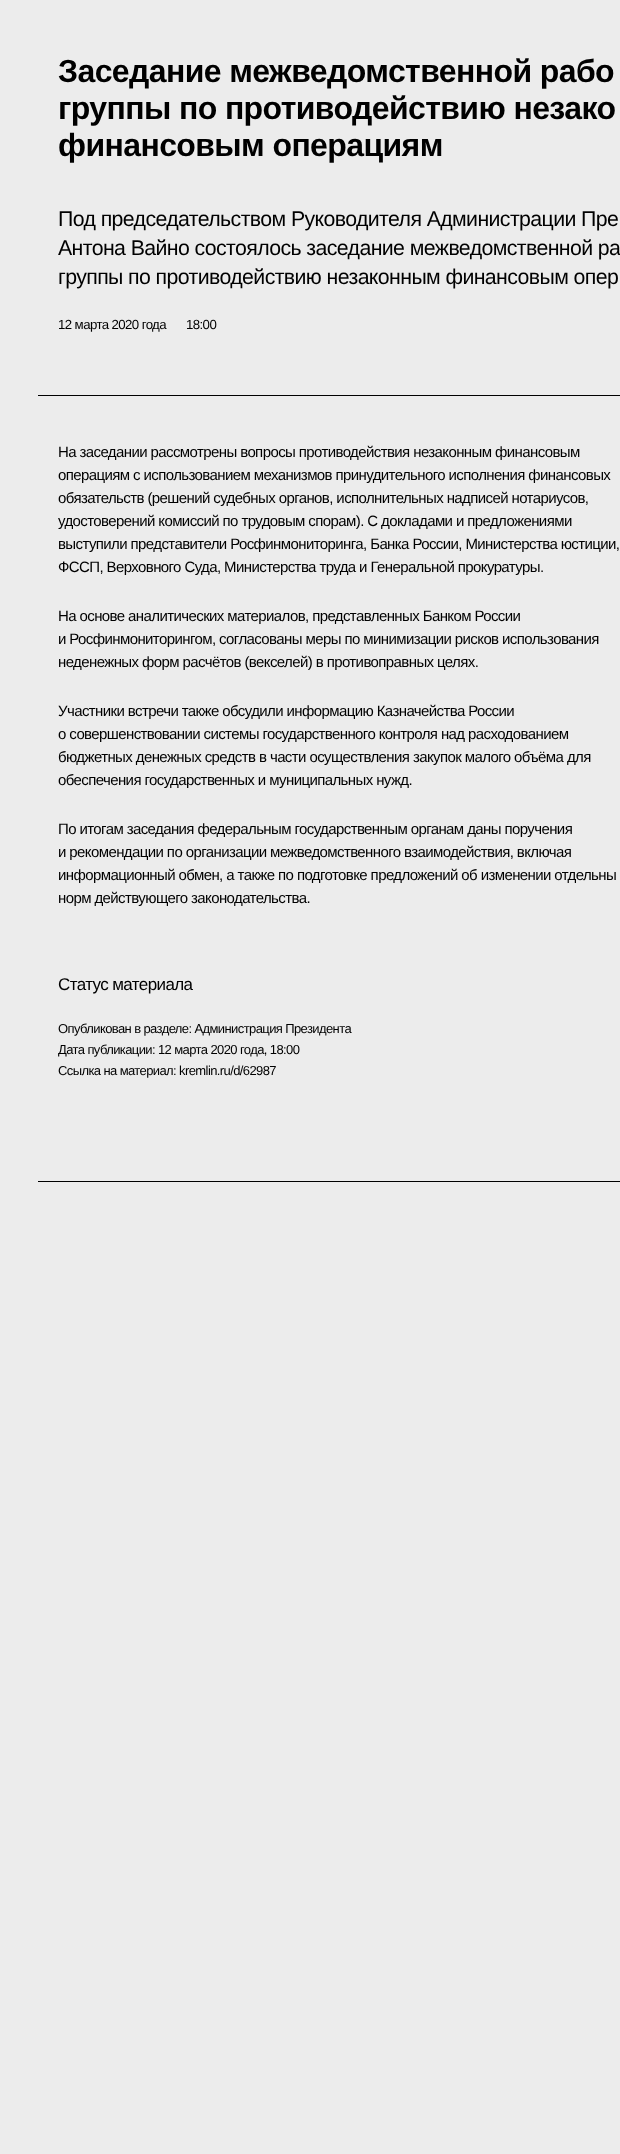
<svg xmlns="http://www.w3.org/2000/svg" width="620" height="2154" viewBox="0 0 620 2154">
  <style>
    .t1 { font: bold 32px Liberation Sans; letter-spacing: -0.6px; fill: #000; }
    .t2 { font: 21.3px Liberation Sans; letter-spacing: -0.6px; fill: #000; }
    .t3 { font: 13.25px Liberation Sans; letter-spacing: -0.6px; fill: #000; }
    .t4 { font: 15px Liberation Sans; letter-spacing: -0.6px; fill: #000; }
    .t5 { font: 17px Liberation Sans; letter-spacing: -0.6px; fill: #000; }
    .t6 { font: 13px Liberation Sans; letter-spacing: -0.6px; fill: #000; }
  </style>
  <rect width="100%" height="100%" fill="#ececec"/>
  <rect x="38" y="1181" width="582" height="1" fill="#000"/>
  <rect x="38" y="395" width="582" height="1" fill="#000"/>
  <text x="58" y="82" class="t1">Заседание межведомственной рабо</text>
  <text x="58" y="119" class="t1">группы по противодействию незако</text>
  <text x="58" y="156" class="t1">финансовым операциям</text>
  <text x="58" y="226" class="t2">Под председательством Руководителя Администрации Пре</text>
  <text x="58" y="255" class="t2">Антона Вайно состоялось заседание межведомственной ра</text>
  <text x="58" y="284" class="t2">группы по противодействию незаконным финансовым опер</text>
  <text x="58" y="329" class="t3">12 марта 2020 года</text>
  <text x="186" y="329" class="t3">18:00</text>
  <text x="58" y="457" class="t4">На заседании рассмотрены вопросы противодействия незаконным финансовым</text>
  <text x="58" y="480" class="t4">операциям с использованием механизмов принудительного исполнения финансовых</text>
  <text x="58" y="503" class="t4">обязательств (решений судебных органов, исполнительных надписей нотариусов,</text>
  <text x="58" y="526" class="t4">удостоверений комиссий по трудовым спорам). С докладами и предложениями</text>
  <text x="58" y="549" class="t4">выступили представители Росфинмониторинга, Банка России, Министерства юстиции,</text>
  <text x="58" y="572" class="t4">ФССП, Верховного Суда, Министерства труда и Генеральной прокуратуры.</text>
  <text x="58" y="621" class="t4">На основе аналитических материалов, представленных Банком России</text>
  <text x="58" y="644" class="t4">и Росфинмониторингом, согласованы меры по минимизации рисков использования</text>
  <text x="58" y="667" class="t4">неденежных форм расчётов (векселей) в противоправных целях.</text>
  <text x="58" y="716" class="t4">Участники встречи также обсудили информацию Казначейства России</text>
  <text x="58" y="739" class="t4">о совершенствовании системы государственного контроля над расходованием</text>
  <text x="58" y="762" class="t4">бюджетных денежных средств в части осуществления закупок малого объёма для</text>
  <text x="58" y="785" class="t4">обеспечения государственных и муниципальных нужд.</text>
  <text x="58" y="834" class="t4">По итогам заседания федеральным государственным органам даны поручения</text>
  <text x="58" y="857" class="t4">и рекомендации по организации межведомственного взаимодействия, включая</text>
  <text x="58" y="880" class="t4">информационный обмен, а также по подготовке предложений об изменении отдельны</text>
  <text x="58" y="903" class="t4">норм действующего законодательства.</text>
  <text x="58" y="990" class="t5">Статус материала</text>
  <text x="58" y="1033" class="t6">Опубликован в разделе: Администрация Президента</text>
  <text x="58" y="1054" class="t6">Дата публикации: 12 марта 2020 года, 18:00</text>
  <text x="58" y="1075" class="t6">Ссылка на материал: kremlin.ru/d/62987</text>
</svg>
